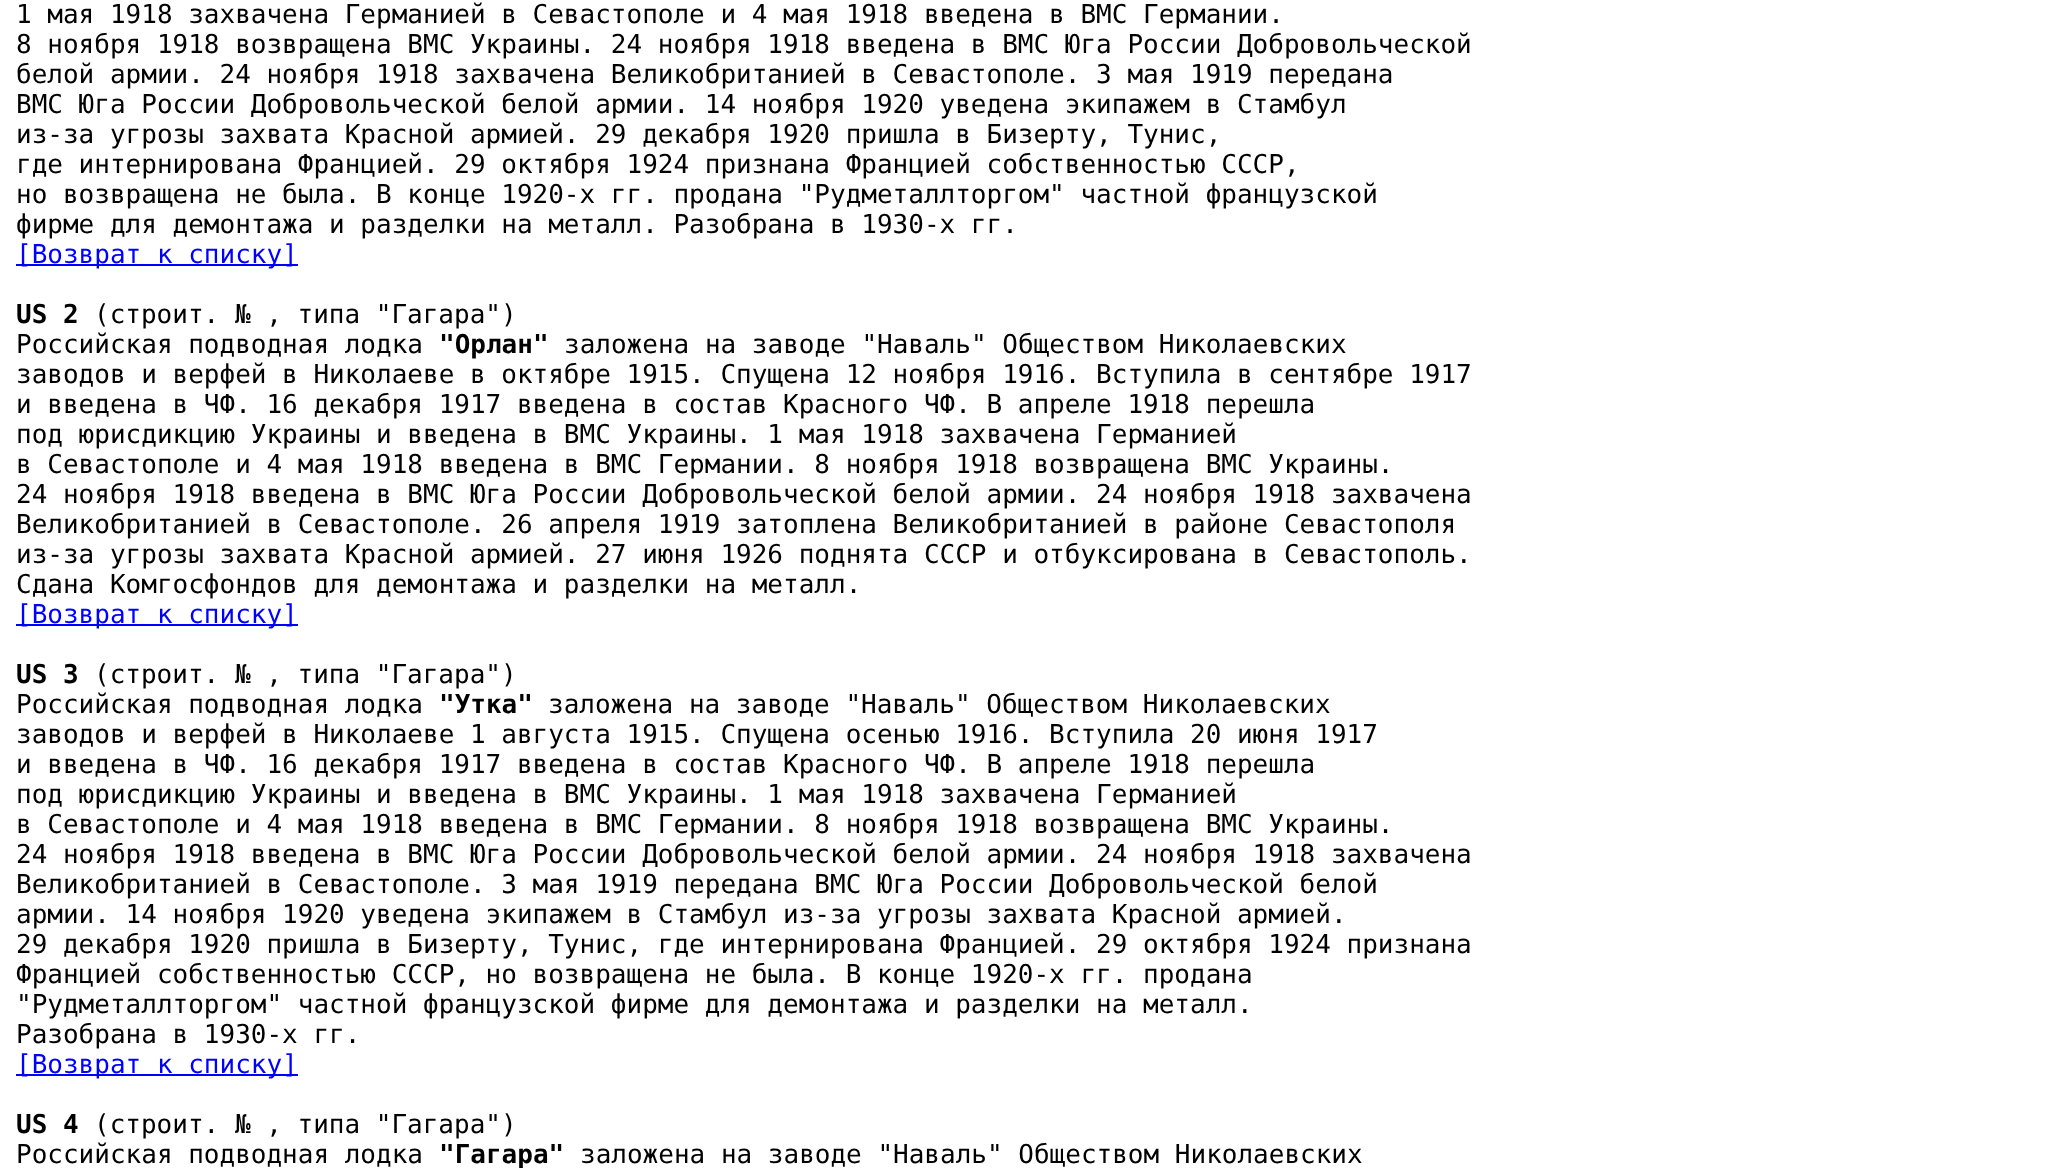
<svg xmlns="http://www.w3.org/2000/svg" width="2050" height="1168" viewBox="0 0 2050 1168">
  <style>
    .t1 { font: 26px DejaVu Sans Mono; fill: #000; }
    .t2 { font: 26px DejaVu Sans Mono; fill: #00f; }
    .t3 { font: bold 26px DejaVu Sans Mono; fill: #000; }
  </style>
  <rect width="100%" height="100%" fill="#fff"/>
  <text x="16" y="23" class="t1">1 мая 1918 захвачена Германией в Севастополе и 4 мая 1918 введена в ВМС Германии.</text>
  <text x="16" y="53" class="t1">8 ноября 1918 возвращена ВМС Украины. 24 ноября 1918 введена в ВМС Юга России Добровольческой</text>
  <text x="16" y="83" class="t1">белой армии. 24 ноября 1918 захвачена Великобританией в Севастополе. 3 мая 1919 передана</text>
  <text x="16" y="113" class="t1">ВМС Юга России Добровольческой белой армии. 14 ноября 1920 уведена экипажем в Стамбул</text>
  <text x="16" y="143" class="t1">из-за угрозы захвата Красной армией. 29 декабря 1920 пришла в Бизерту, Тунис,</text>
  <text x="16" y="173" class="t1">где интернирована Францией. 29 октября 1924 признана Францией собственностью СССР,</text>
  <text x="16" y="203" class="t1">но возвращена не была. В конце 1920-х гг. продана "Рудметаллторгом" частной французской</text>
  <text x="16" y="233" class="t1">фирме для демонтажа и разделки на металл. Разобрана в 1930-х гг.</text>
  <rect x="16" y="264" width="282" height="2" fill="#00f"/>
  <text x="16" y="263" class="t2">[Bозврат к списку]</text>
  <text x="16" y="323" class="t3">US 2</text>
  <text x="94" y="323" class="t1">(строит. № , типа "Гагара")</text>
  <text x="16" y="353" class="t1">Российская подводная лодка</text>
  <text x="439" y="353" class="t3">"Орлан"</text>
  <text x="564" y="353" class="t1">заложена на заводе "Наваль" Обществом Николаевских</text>
  <text x="16" y="383" class="t1">заводов и верфей в Николаеве в октябре 1915. Спущена 12 ноября 1916. Вступила в сентябре 1917</text>
  <text x="16" y="413" class="t1">и введена в ЧФ. 16 декабря 1917 введена в состав Красного ЧФ. В апреле 1918 перешла</text>
  <text x="16" y="443" class="t1">под юрисдикцию Украины и введена в ВМС Украины. 1 мая 1918 захвачена Германией</text>
  <text x="16" y="473" class="t1">в Севастополе и 4 мая 1918 введена в ВМС Германии. 8 ноября 1918 возвращена ВМС Украины.</text>
  <text x="16" y="503" class="t1">24 ноября 1918 введена в ВМС Юга России Добровольческой белой армии. 24 ноября 1918 захвачена</text>
  <text x="16" y="533" class="t1">Великобританией в Севастополе. 26 апреля 1919 затоплена Великобританией в районе Севастополя</text>
  <text x="16" y="563" class="t1">из-за угрозы захвата Красной армией. 27 июня 1926 поднята СССР и отбуксирована в Севастополь.</text>
  <text x="16" y="593" class="t1">Сдана Комгосфондов для демонтажа и разделки на металл.</text>
  <rect x="16" y="624" width="282" height="2" fill="#00f"/>
  <text x="16" y="623" class="t2">[Bозврат к списку]</text>
  <text x="16" y="683" class="t3">US 3</text>
  <text x="94" y="683" class="t1">(строит. № , типа "Гагара")</text>
  <text x="16" y="713" class="t1">Российская подводная лодка</text>
  <text x="439" y="713" class="t3">"Утка"</text>
  <text x="548" y="713" class="t1">заложена на заводе "Наваль" Обществом Николаевских</text>
  <text x="16" y="743" class="t1">заводов и верфей в Николаеве 1 августа 1915. Спущена осенью 1916. Вступила 20 июня 1917</text>
  <text x="16" y="773" class="t1">и введена в ЧФ. 16 декабря 1917 введена в состав Красного ЧФ. В апреле 1918 перешла</text>
  <text x="16" y="803" class="t1">под юрисдикцию Украины и введена в ВМС Украины. 1 мая 1918 захвачена Германией</text>
  <text x="16" y="833" class="t1">в Севастополе и 4 мая 1918 введена в ВМС Германии. 8 ноября 1918 возвращена ВМС Украины.</text>
  <text x="16" y="863" class="t1">24 ноября 1918 введена в ВМС Юга России Добровольческой белой армии. 24 ноября 1918 захвачена</text>
  <text x="16" y="893" class="t1">Великобританией в Севастополе. 3 мая 1919 передана ВМС Юга России Добровольческой белой</text>
  <text x="16" y="923" class="t1">армии. 14 ноября 1920 уведена экипажем в Стамбул из-за угрозы захвата Красной армией.</text>
  <text x="16" y="953" class="t1">29 декабря 1920 пришла в Бизерту, Тунис, где интернирована Францией. 29 октября 1924 признана</text>
  <text x="16" y="983" class="t1">Францией собственностью СССР, но возвращена не была. В конце 1920-х гг. продана</text>
  <text x="16" y="1013" class="t1">"Рудметаллторгом" частной французской фирме для демонтажа и разделки на металл.</text>
  <text x="16" y="1043" class="t1">Разобрана в 1930-х гг.</text>
  <rect x="16" y="1074" width="282" height="2" fill="#00f"/>
  <text x="16" y="1073" class="t2">[Bозврат к списку]</text>
  <text x="16" y="1133" class="t3">US 4</text>
  <text x="94" y="1133" class="t1">(строит. № , типа "Гагара")</text>
  <text x="16" y="1163" class="t1">Российская подводная лодка</text>
  <text x="439" y="1163" class="t3">"Гагара"</text>
  <text x="580" y="1163" class="t1">заложена на заводе "Наваль" Обществом Николаевских</text>
</svg>
